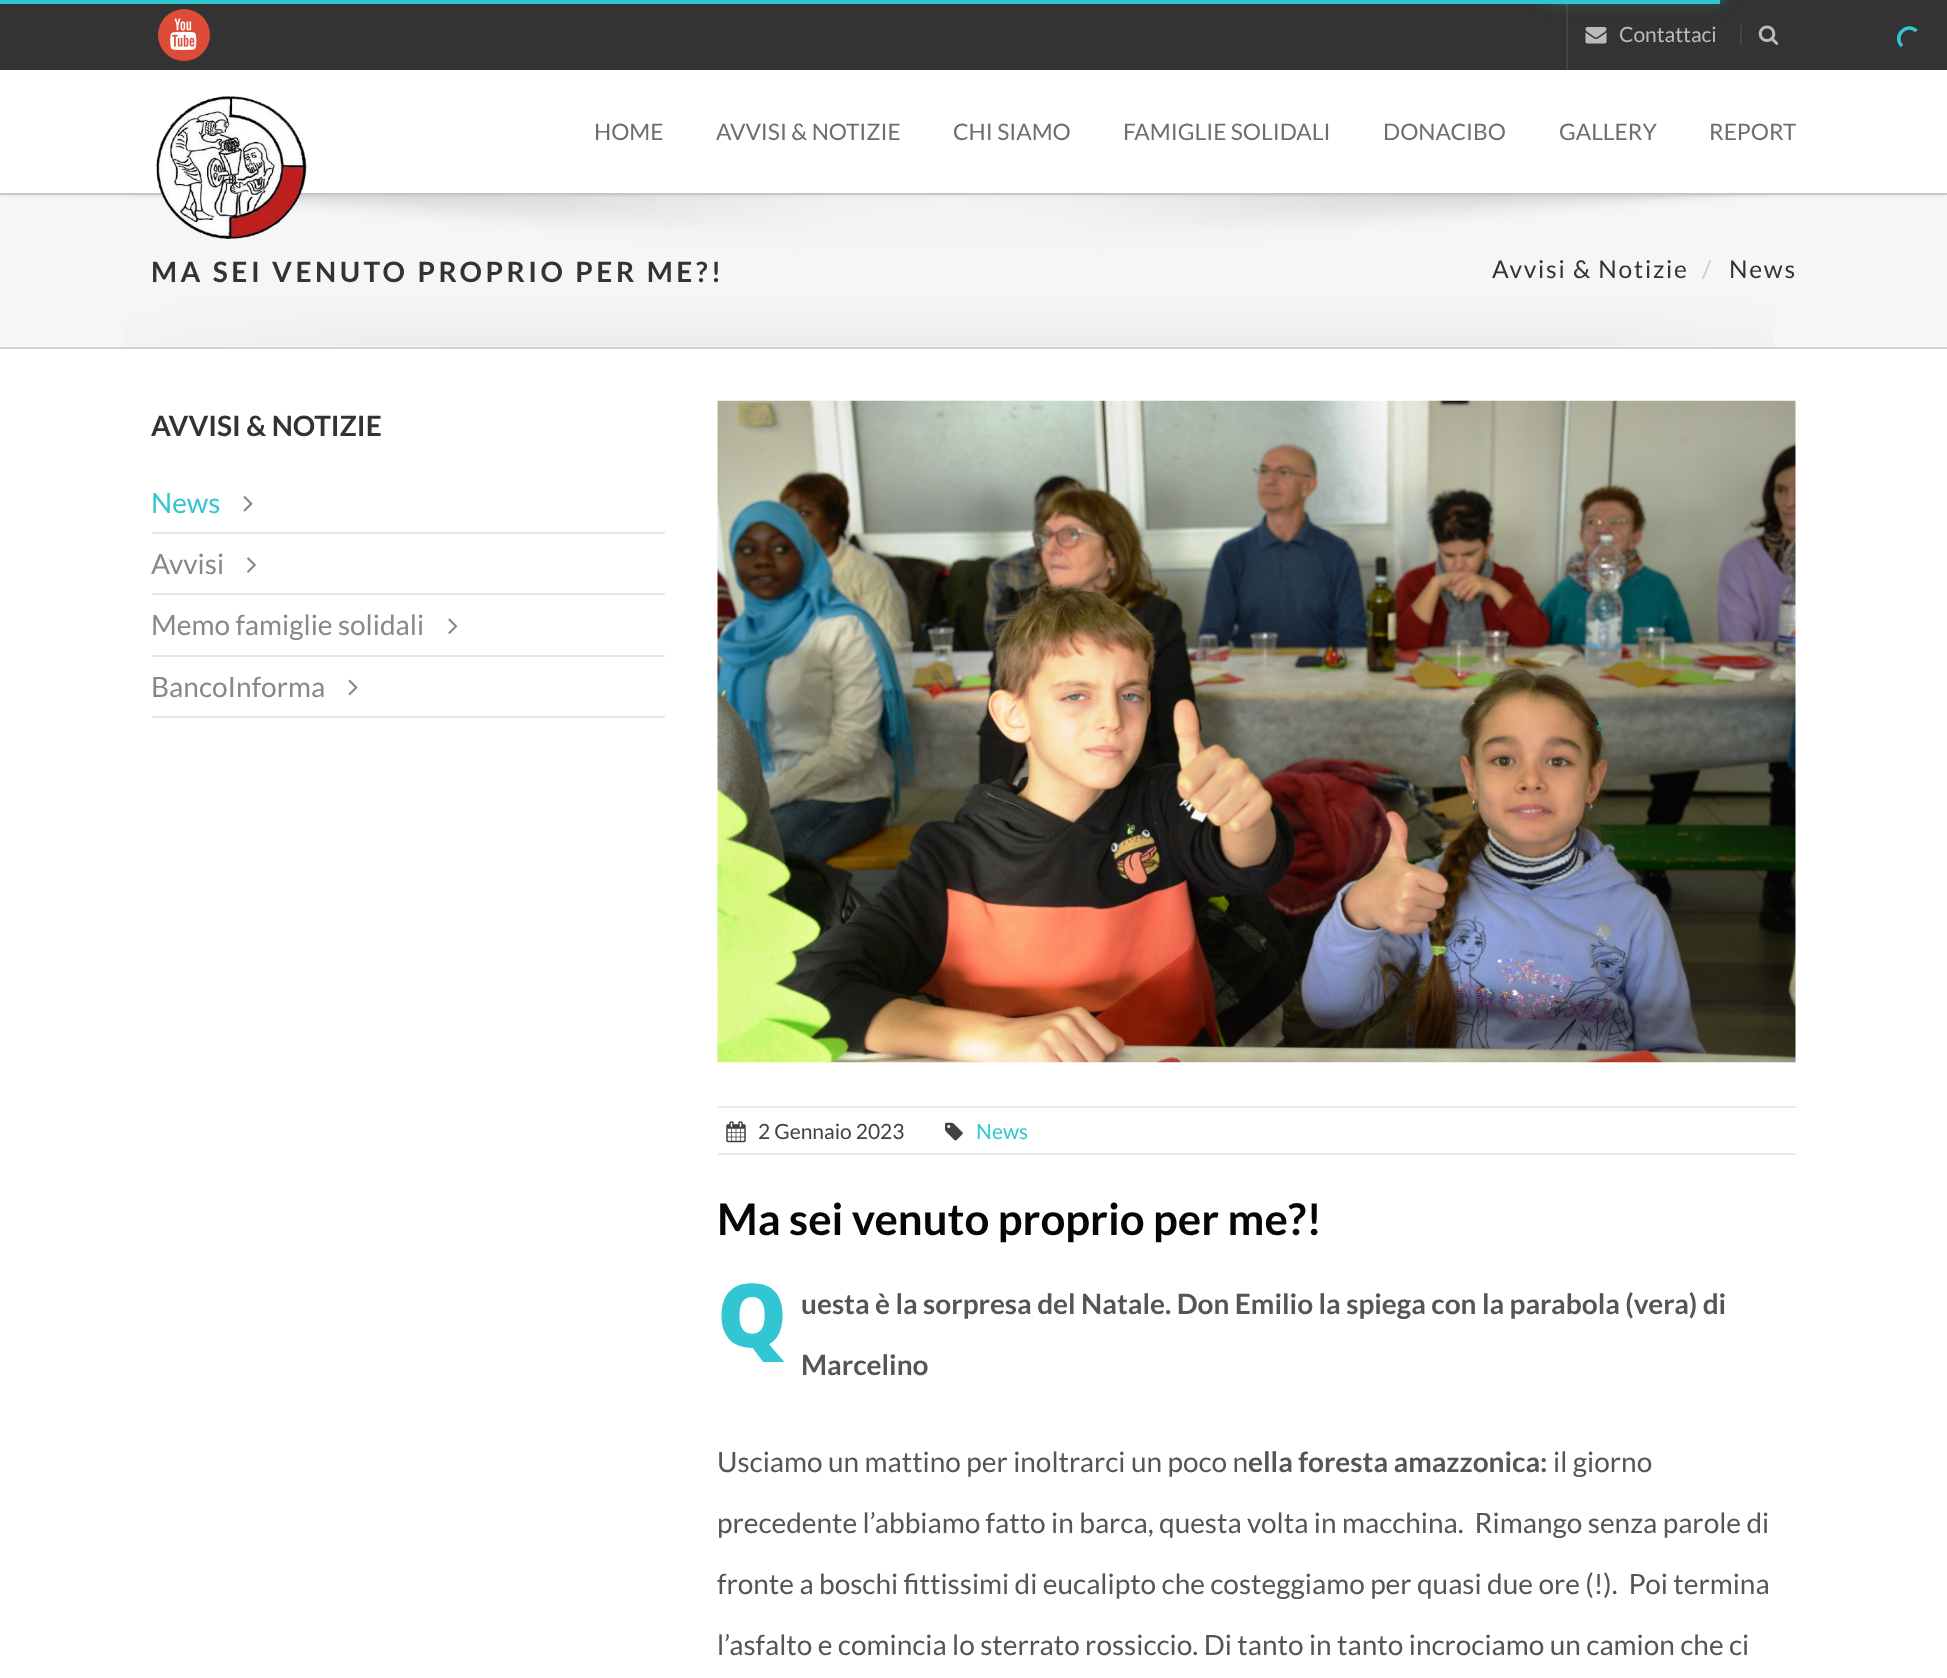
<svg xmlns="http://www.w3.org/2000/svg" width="1947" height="1678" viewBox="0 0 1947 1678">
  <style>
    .t1 { font: 21px Lato; fill: #bbb; }
    .t2 { font: 22.75px Lato; fill: #687074; }
    .t3 { font: bold 28px Lato; letter-spacing: 3.5px; fill: #333; }
    .t4 { font: 24.5px Lato; letter-spacing: 1.75px; fill: #333; }
    .t5 { font: 24.5px Lato; letter-spacing: 1.75px; fill: #ccc; }
    .t6 { font: bold 28px Lato; fill: #333; }
    .t7 { font: 28px Lato; fill: #32c5d2; }
    .t8 { font: 28px Lato; fill: #888; }
    .t9 { font: 21px Lato; fill: #424242; }
    .t10 { font: 21px Lato; fill: #32c5d2; }
    .t11 { font: bold 43.75px Lato; fill: #060606; }
    .t12 { font: 900 88px Noto Sans; fill: #32c5d2; }
    .t13 { font: bold 28px Lato; fill: #555; }
    .t14 { font: 28px Lato; fill: #555; }
  </style>
  <defs>
    <clipPath id="clip1"><path d="M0 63H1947V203H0ZM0 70H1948V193H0Z" clip-rule="evenodd"/></clipPath>
  </defs>
  <rect width="100%" height="100%" fill="#fff"/>
  <rect x="0" y="0" width="1947" height="70" fill="#333"/>
  <rect x="1566" y="0" width="2" height="70" fill="#444"/>
  <rect x="0" y="0" width="1720" height="4" fill="#32c5d2"/>
  <rect x="1547" y="-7" width="175" height="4" fill="#32c5d2" filter="blur(4.5px)"/>
  <rect x="1547" y="-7" width="175" height="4" fill="#32c5d2" filter="blur(9px)"/>
  <path d="M1902 46C1892 36 1907 21.5 1916.5 31" fill="none" stroke="#32c5d2" stroke-width="3.5"/>
  <circle cx="184" cy="35" r="26" fill="#dd4b39"/>
  <image x="170" y="18" width="27" height="32" href="images/1.png"/>
  <image x="1585" y="27" width="22" height="17" href="images/2.png"/>
  <text x="1619" y="42" class="t1">Contattaci</text>
  <rect x="1740" y="25" width="2" height="21" fill="#444"/>
  <image x="1758" y="25" width="21" height="20" href="images/3.png"/>
  <rect x="0" y="195" width="1947" height="152" fill="#f6f6f6"/>
  <image x="123" y="195" width="1651" height="151" href="images/5.png"/>
  <rect x="0" y="193" width="1947" height="2" fill="#d2d3d4"/>
  <g clip-path="url(#clip1)">
    <rect x="0" y="72" width="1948" height="122" fill="#0000001f" filter="blur(2.5px)"/>
  </g>
  <rect x="0" y="192" width="1947" height="1" fill="#ffffffe6"/>
  <image x="155" y="96" width="152" height="143" href="images/4.png"/>
  <text x="594" y="140" class="t2">HOME</text>
  <text x="716" y="140" class="t2">AVVISI &amp; NOTIZIE</text>
  <text x="953" y="140" class="t2">CHI SIAMO</text>
  <text x="1123" y="140" class="t2">FAMIGLIE SOLIDALI</text>
  <text x="1383" y="140" class="t2">DONACIBO</text>
  <text x="1559" y="140" class="t2">GALLERY</text>
  <text x="1709" y="140" class="t2">REPORT</text>
  <rect x="0" y="347" width="1947" height="2" fill="#d2d3d4"/>
  <text x="151" y="282" class="t3">MA SEI VENUTO PROPRIO PER ME?!</text>
  <text x="1492" y="278" class="t4">Avvisi &amp; Notizie</text>
  <text x="1702" y="278" class="t5">/</text>
  <text x="1729" y="278" class="t4">News</text>
  <text x="151" y="436" class="t6">AVVISI &amp; NOTIZIE</text>
  <rect x="152" y="532" width="513" height="2" fill="#e5e5e5"/>
  <text x="151" y="513" class="t7">News</text>
  <image x="243" y="496" width="10" height="16" href="images/6.png"/>
  <rect x="152" y="593" width="513" height="2" fill="#e5e5e5"/>
  <text x="151" y="574" class="t8">Avvisi</text>
  <image x="247" y="557" width="9" height="16" href="images/7.png"/>
  <rect x="152" y="655" width="513" height="2" fill="#e5e5e5"/>
  <text x="151" y="635" class="t8">Memo famiglie solidali</text>
  <image x="448" y="618" width="10" height="16" href="images/8.png"/>
  <rect x="152" y="716" width="513" height="2" fill="#e5e5e5"/>
  <text x="151" y="697" class="t8">BancoInforma</text>
  <image x="348" y="679" width="10" height="17" href="images/9.png"/>
  <image x="717" y="400" width="1079" height="663" href="images/10.png"/>
  <rect x="718" y="1106" width="1078" height="2" fill="#ebeaea"/>
  <rect x="718" y="1153" width="1078" height="2" fill="#ebeaea"/>
  <image x="726" y="1121" width="20" height="22" href="images/11.png"/>
  <text x="758" y="1139" class="t9">2 Gennaio 2023</text>
  <image x="945" y="1122" width="18" height="19" href="images/12.png"/>
  <text x="976" y="1139" class="t10">News</text>
  <text x="717" y="1235" class="t11">Ma sei venuto proprio per me?!</text>
  <text x="717" y="1347" class="t12">Q</text>
  <text x="801" y="1314" class="t13">uesta è la sorpresa del Natale. Don Emilio la spiega con la parabola (vera) di</text>
  <text x="801" y="1375" class="t13">Marcelino</text>
  <text x="717" y="1472" class="t14">Usciamo un mattino per inoltrarci un poco n</text>
  <text x="1248" y="1472" class="t13">ella foresta amazzonica:</text>
  <text x="1553" y="1472" class="t14">il giorno</text>
  <text x="717" y="1533" class="t14" xml:space="preserve">precedente l’abbiamo fatto in barca, questa volta in macchina.  Rimango senza parole di</text>
  <text x="717" y="1594" class="t14" xml:space="preserve">fronte a boschi fittissimi di eucalipto che costeggiamo per quasi due ore (!).  Poi termina</text>
  <text x="717" y="1655" class="t14">l’asfalto e comincia lo sterrato rossiccio. Di tanto in tanto incrociamo un camion che ci</text>
</svg>
